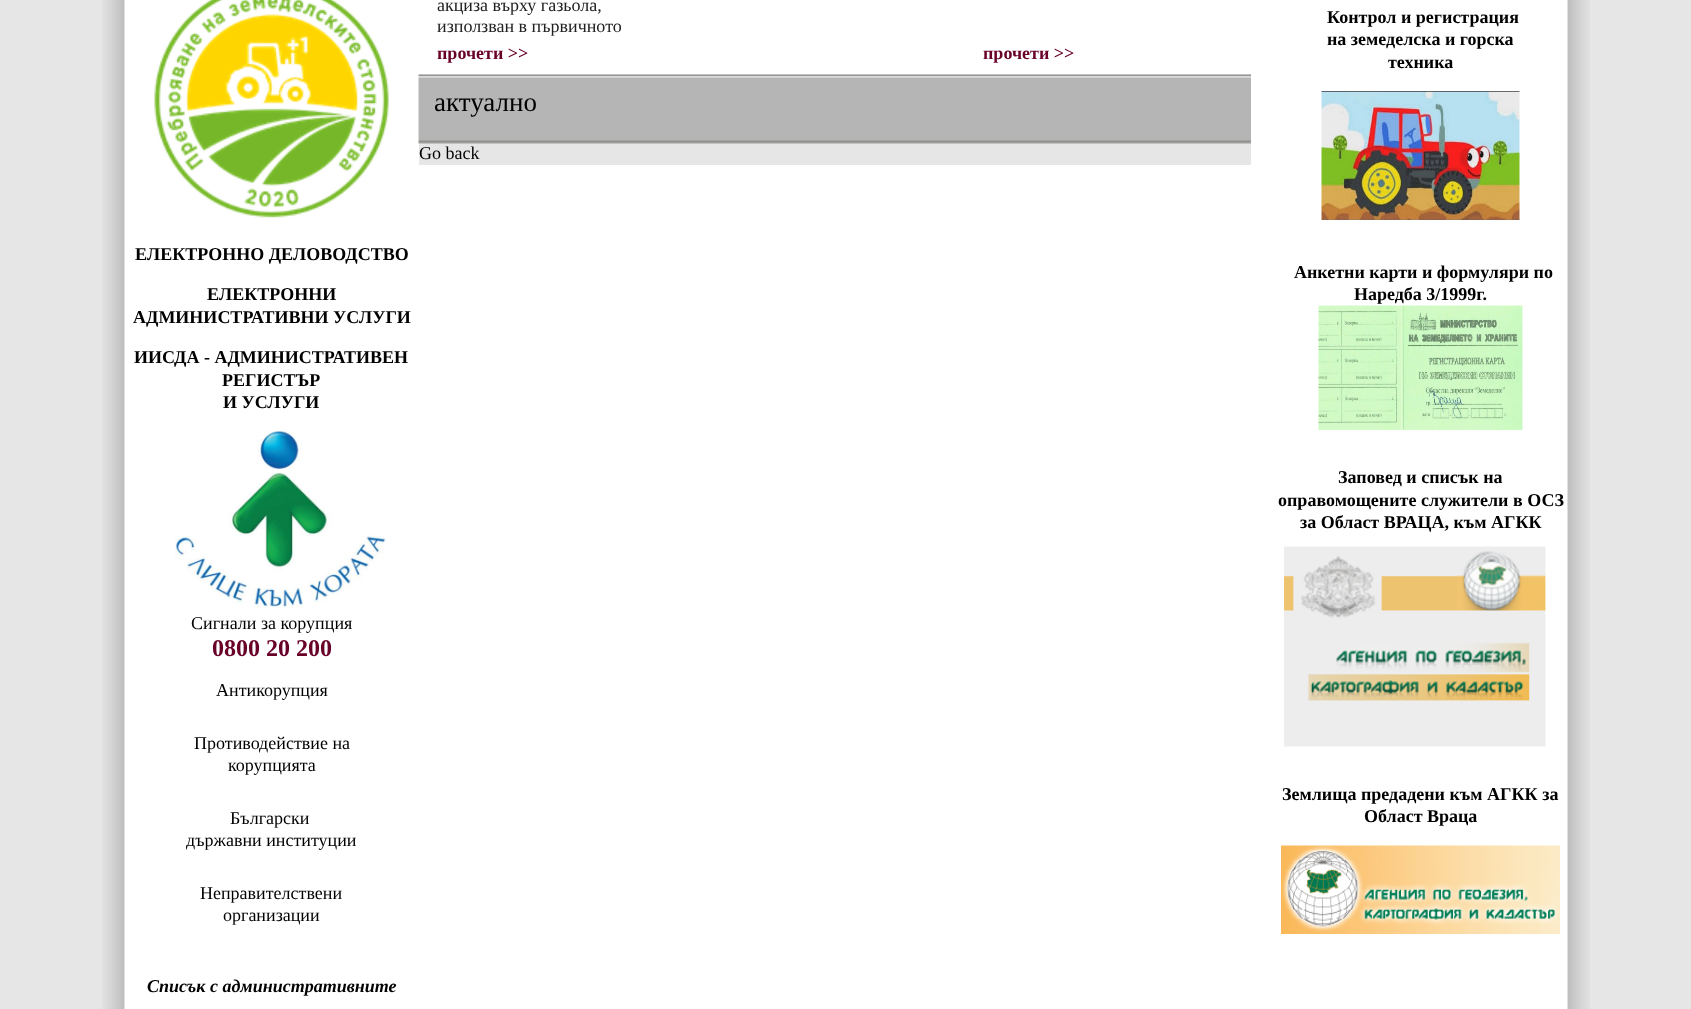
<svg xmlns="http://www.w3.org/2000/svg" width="1691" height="1009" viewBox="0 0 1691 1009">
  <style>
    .t1 { font: bold 18px Liberation Serif; fill: #000; }
    .t2 { font: 18px Liberation Serif; fill: #000; }
    .t3 { font: bold 24px Liberation Serif; fill: #680028; }
    .t4 { font: italic bold 18px Liberation Serif; fill: #000; }
    .t5 { font: 18px Liberation Serif; fill: #202020; }
    .t6 { font: bold 18px Liberation Serif; fill: #680028; }
    .t7 { font: 27px Liberation Serif; fill: #000; }
  </style>
  <rect width="100%" height="100%" fill="#e6e6e6"/>
  <image x="102" y="0" width="1488" height="1009" href="images/1.png"/>
  <image x="154" y="0" width="235" height="218" href="images/2.png"/>
  <text x="135" y="260" class="t1">ЕЛЕКТРОННО ДЕЛОВОДСТВО</text>
  <text x="207" y="300" class="t1">ЕЛЕКТРОННИ</text>
  <text x="133" y="323" class="t1">АДМИНИСТРАТИВНИ УСЛУГИ</text>
  <text x="134" y="363" class="t1">ИИСДА - АДМИНИСТРАТИВЕН</text>
  <text x="222" y="386" class="t1">РЕГИСТЪР</text>
  <text x="223" y="408" class="t1">И УСЛУГИ</text>
  <image x="175" y="431" width="211" height="178" href="images/3.png"/>
  <text x="191" y="629" class="t2">Сигнали за корупция</text>
  <text x="212" y="656" class="t3">0800 20 200</text>
  <text x="216" y="696" class="t2">Антикорупция</text>
  <text x="194" y="749" class="t2">Противодействие на</text>
  <text x="228" y="771" class="t2">корупцията</text>
  <text x="230" y="824" class="t2">Български</text>
  <text x="186" y="846" class="t2">държавни институции</text>
  <text x="200" y="899" class="t2">Неправителствени</text>
  <text x="223" y="921" class="t2">организации</text>
  <text x="147" y="992" class="t4">Списък с административните</text>
  <text x="437" y="11" class="t5">акциза върху газьола,</text>
  <text x="437" y="32" class="t5">използван в първичното</text>
  <text x="437" y="59" class="t6">прочети &gt;&gt;</text>
  <text x="983" y="59" class="t6">прочети &gt;&gt;</text>
  <rect x="419" y="143" width="832" height="22" fill="#e6e6e6"/>
  <image x="418" y="74" width="833" height="70" href="images/4.png"/>
  <text x="434" y="111" class="t7">актуално</text>
  <text x="419" y="159" class="t2">Go back</text>
  <text x="1327" y="23" class="t1">Контрол и регистрация</text>
  <text x="1327" y="45" class="t1">на земеделска и горска</text>
  <text x="1388" y="68" class="t1">техника</text>
  <image x="1321" y="91" width="199" height="129" href="images/5.png"/>
  <text x="1294" y="278" class="t1">Анкетни карти и формуляри по</text>
  <text x="1354" y="300" class="t1">Наредба 3/1999г.</text>
  <image x="1318" y="305" width="205" height="125" href="images/6.png"/>
  <text x="1338" y="483" class="t1">Заповед и списък на</text>
  <text x="1278" y="506" class="t1">оправомощените служители в ОСЗ</text>
  <text x="1300" y="528" class="t1">за Област ВРАЦА, към АГКК</text>
  <image x="1284" y="546" width="262" height="201" href="images/7.png"/>
  <text x="1282" y="800" class="t1">Землища предадени към АГКК за</text>
  <text x="1364" y="822" class="t1">Област Враца</text>
  <image x="1281" y="845" width="279" height="89" href="images/8.png"/>
</svg>
